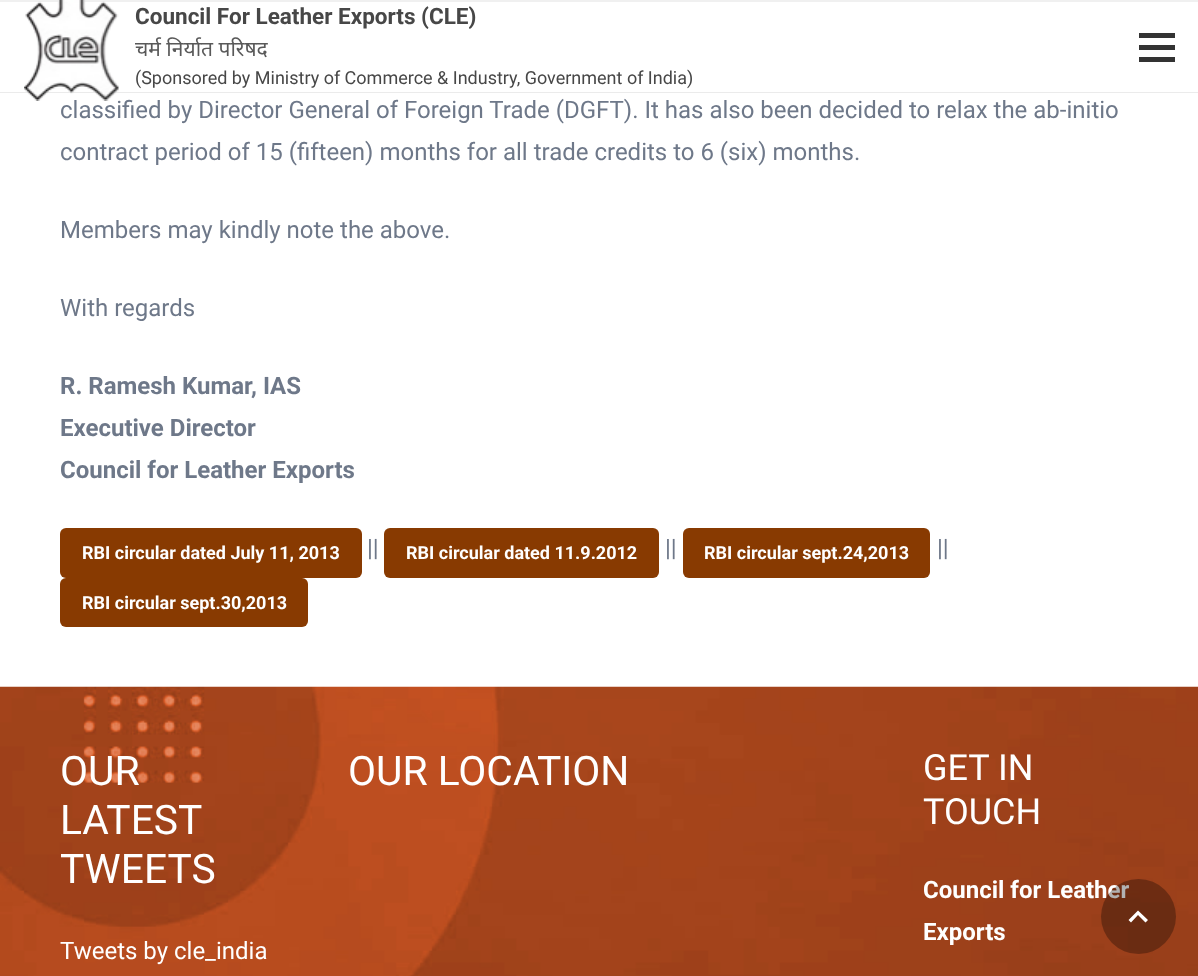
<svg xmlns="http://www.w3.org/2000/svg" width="1198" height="976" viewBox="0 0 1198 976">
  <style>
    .t1 { font: 24px Roboto; fill: #6e7889; }
    .t2 { font: bold 22.5px Roboto; fill: #474747; }
    .t3 { font: 21px Noto Sans; fill: #595959; }
    .t4 { font: 18px Roboto; fill: #474747; }
    .t5 { font: bold 24px Roboto; fill: #6e7889; }
    .t6 { font: bold 18px Roboto; fill: #fff; }
    .t7 { font: 40.75px Roboto; fill: #fff; }
    .t8 { font: 24px Roboto; fill: #fff; }
    .t9 { font: 36px Roboto; fill: #fff; }
    .t10 { font: bold 24px Roboto; fill: #fff; }
  </style>
  <rect width="100%" height="100%" fill="#fff"/>
  <rect x="0" y="0" width="1198" height="2" fill="#f0f0f0"/>
  <path d="M0 92V93H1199V3H1198V92Z" fill="#ebebeb"/>
  <text x="60" y="118" class="t1">classified by Director General of Foreign Trade (DGFT). It has also been decided to relax the ab-initio</text>
  <image x="24" y="0" width="95" height="101" href="images/1.png"/>
  <text x="135" y="24" class="t2">Council For Leather Exports (CLE)</text>
  <text x="135" y="56" class="t3">चर्म निर्यात परिषद</text>
  <text x="135" y="84" class="t4">(Sponsored by Ministry of Commerce &amp; Industry, Government of India)</text>
  <rect x="1139" y="45" width="36" height="5" fill="#333"/>
  <rect x="1139" y="33" width="36" height="5" fill="#333"/>
  <rect x="1139" y="57" width="36" height="5" fill="#333"/>
  <text x="60" y="160" class="t1">contract period of 15 (fifteen) months for all trade credits to 6 (six) months.</text>
  <text x="60" y="238" class="t1">Members may kindly note the above.</text>
  <text x="60" y="316" class="t1">With regards</text>
  <text x="60" y="394" class="t5">R. Ramesh Kumar, IAS</text>
  <text x="60" y="436" class="t5">Executive Director</text>
  <text x="60" y="478" class="t5">Council for Leather Exports</text>
  <rect x="60" y="528" width="302" height="50" rx="6" fill="#883a01"/>
  <text x="82" y="559" class="t6">RBI circular dated July 11, 2013</text>
  <text x="367" y="556" class="t1">||</text>
  <rect x="384" y="528" width="275" height="50" rx="6" fill="#883a01"/>
  <text x="406" y="559" class="t6">RBI circular dated 11.9.2012</text>
  <text x="665" y="556" class="t1">||</text>
  <rect x="683" y="528" width="247" height="50" rx="6" fill="#883a01"/>
  <text x="704" y="559" class="t6">RBI circular sept.24,2013</text>
  <text x="937" y="556" class="t1">||</text>
  <rect x="60" y="578" width="248" height="49" rx="6" fill="#883a01"/>
  <text x="82" y="609" class="t6">RBI circular sept.30,2013</text>
  <image x="0" y="686" width="1198" height="290" href="images/2.png"/>
  <text x="60" y="785" class="t7">OUR</text>
  <text x="60" y="834" class="t7">LATEST</text>
  <text x="60" y="883" class="t7">TWEETS</text>
  <text x="60" y="959" class="t8">Tweets by cle_india</text>
  <text x="348" y="785" class="t7">OUR LOCATION</text>
  <text x="923" y="780" class="t9">GET IN</text>
  <text x="923" y="824" class="t9">TOUCH</text>
  <text x="923" y="898" class="t10">Council for Leather</text>
  <text x="923" y="940" class="t10">Exports</text>
  <circle cx="1138.5" cy="916.5" r="37.5" fill="#0000004d"/>
  <path d="M1131 922.5L1128.5 920L1138 910.5L1148 920L1145.5 922.5L1138 915Z" fill="#fff"/>
</svg>
